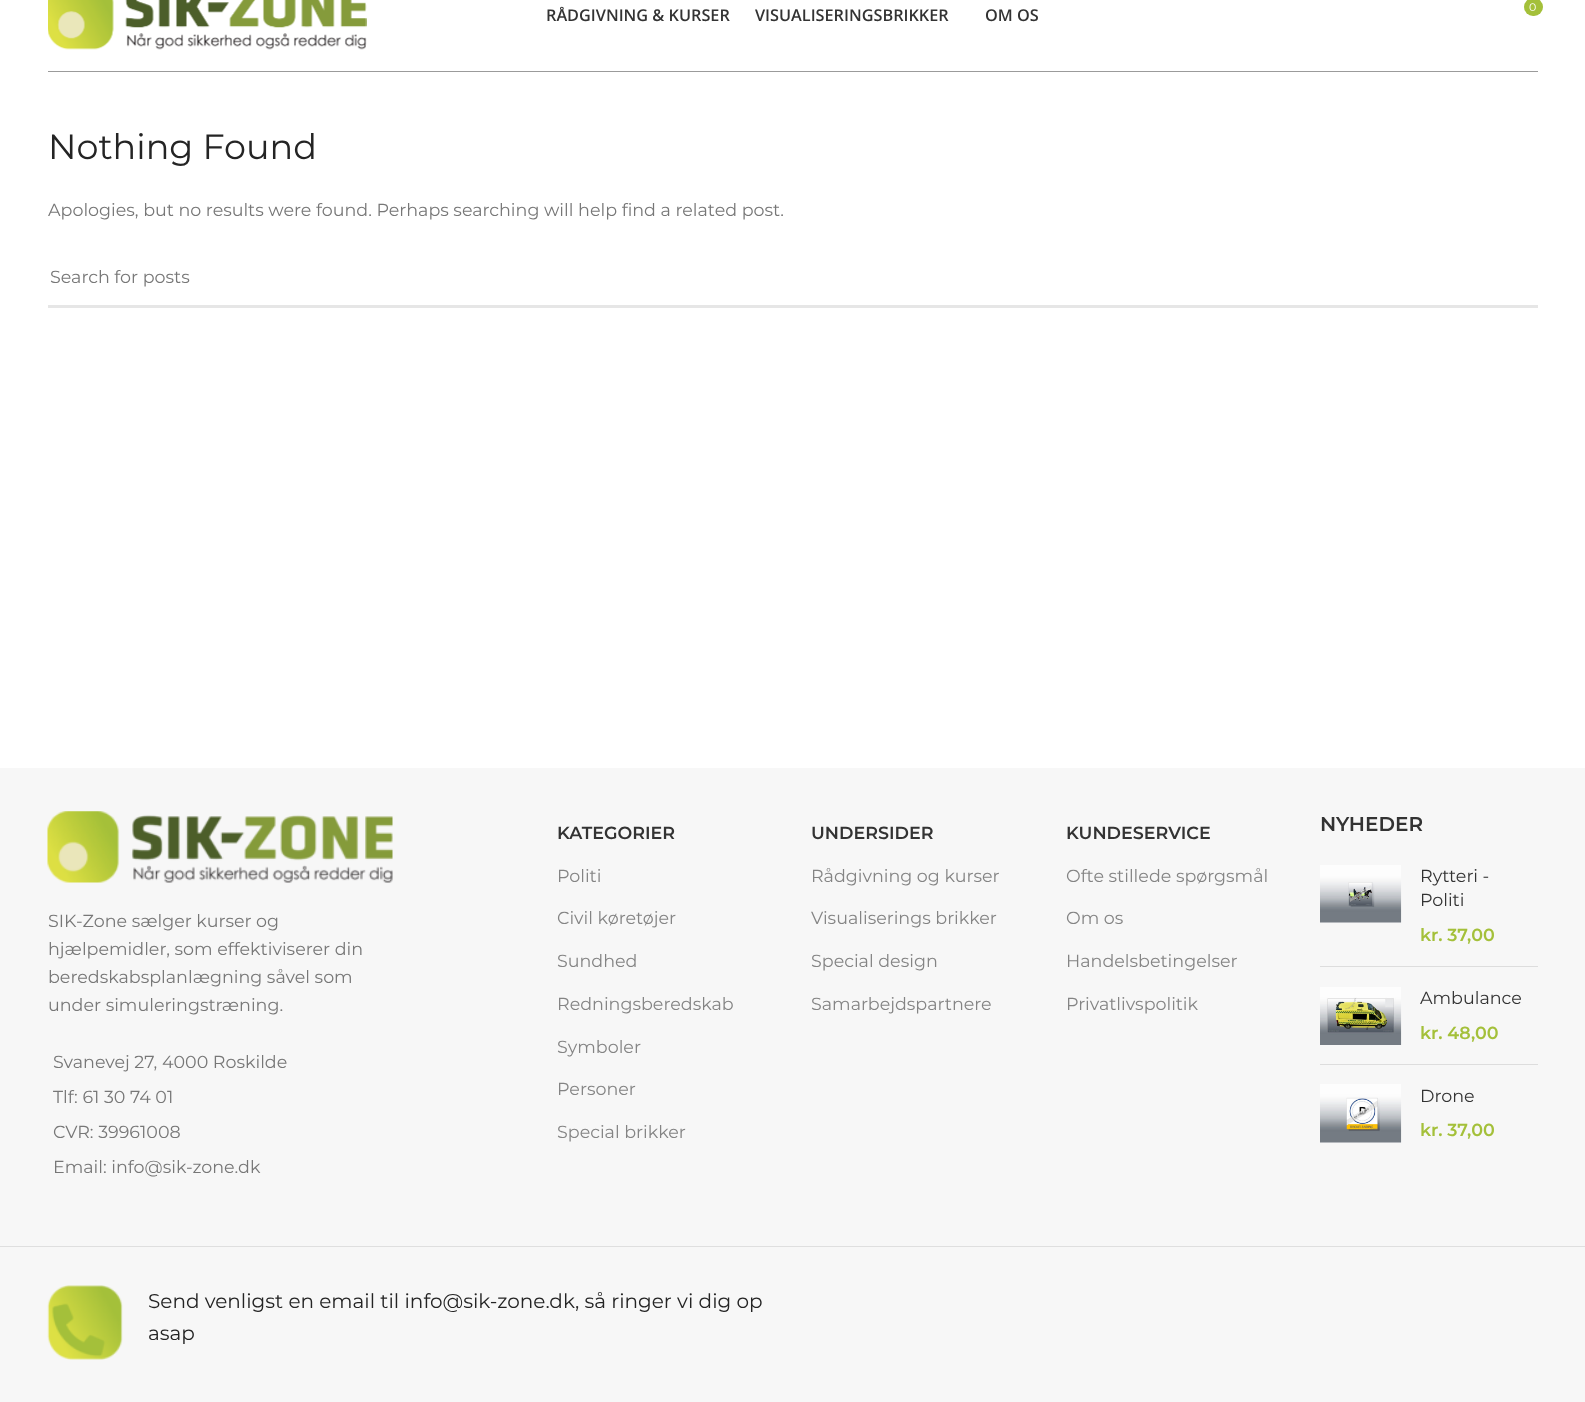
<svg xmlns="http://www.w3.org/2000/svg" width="1585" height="1402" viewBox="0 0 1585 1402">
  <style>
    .t1 { font: 600 16.25px Open Sans; fill: #333; }
    .t2 { font: 11px Montserrat; fill: #fff; }
    .t3 { font: 35px Montserrat; fill: #242424; }
    .t4 { font: 17.5px Montserrat; fill: #777; }
    .t5 { font: 600 17.5px Montserrat; fill: #333; }
    .t6 { font: 17.5px Montserrat; fill: #848484; }
    .t7 { font: 600 20px Montserrat; fill: #333; }
    .t8 { font: 17.5px Montserrat; fill: #333; }
    .t9 { font: 600 17.5px Montserrat; fill: #a4c03a; }
    .t10 { font: 20px Montserrat; fill: #242424; }
  </style>
  <rect width="100%" height="100%" fill="#fff"/>
  <rect x="48" y="71" width="1490" height="1" fill="#9b9b9b"/>
  <image x="48" y="0" width="319" height="50" href="images/1.png"/>
  <text x="546" y="21" class="t1">RÅDGIVNING &amp; KURSER</text>
  <text x="755" y="21" class="t1">VISUALISERINGSBRIKKER</text>
  <text x="985" y="21" class="t1">OM OS</text>
  <rect x="1524" y="-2" width="19" height="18" rx="9" fill="#a4c03a"/>
  <text x="1529" y="11" class="t2">0</text>
  <text x="48" y="159" class="t3">Nothing Found</text>
  <text x="48" y="216" class="t4">Apologies, but no results were found. Perhaps searching will help find a related post.</text>
  <rect x="48" y="305" width="1490" height="3" fill="#e6e6e6"/>
  <text x="50" y="283" class="t4">Search for posts</text>
  <rect x="0" y="768" width="1585" height="634" fill="#f7f7f7"/>
  <rect x="0" y="1246" width="1585" height="1" fill="#dfdfdf"/>
  <image x="47" y="811" width="346" height="72" href="images/2.png"/>
  <text x="48" y="927" class="t4">SIK-Zone sælger kurser og</text>
  <text x="48" y="955" class="t4">hjælpemidler, som effektiviserer din</text>
  <text x="48" y="983" class="t4">beredskabsplanlægning såvel som</text>
  <text x="48" y="1011" class="t4">under simuleringstræning.</text>
  <text x="53" y="1068" class="t4">Svanevej 27, 4000 Roskilde</text>
  <text x="53" y="1103" class="t4">Tlf: 61 30 74 01</text>
  <text x="53" y="1138" class="t4">CVR: 39961008</text>
  <text x="53" y="1173" class="t4">Email: info@sik-zone.dk</text>
  <text x="557" y="839" class="t5">KATEGORIER</text>
  <text x="557" y="882" class="t6">Politi</text>
  <text x="557" y="924" class="t6">Civil køretøjer</text>
  <text x="557" y="967" class="t6">Sundhed</text>
  <text x="557" y="1010" class="t6">Redningsberedskab</text>
  <text x="557" y="1053" class="t6">Symboler</text>
  <text x="557" y="1095" class="t6">Personer</text>
  <text x="557" y="1138" class="t6">Special brikker</text>
  <text x="811" y="839" class="t5">UNDERSIDER</text>
  <text x="811" y="882" class="t6">Rådgivning og kurser</text>
  <text x="811" y="924" class="t6">Visualiserings brikker</text>
  <text x="811" y="967" class="t6">Special design</text>
  <text x="811" y="1010" class="t6">Samarbejdspartnere</text>
  <text x="1066" y="839" class="t5">KUNDESERVICE</text>
  <text x="1066" y="882" class="t6">Ofte stillede spørgsmål</text>
  <text x="1066" y="924" class="t6">Om os</text>
  <text x="1066" y="967" class="t6">Handelsbetingelser</text>
  <text x="1066" y="1010" class="t6">Privatlivspolitik</text>
  <text x="1320" y="831" class="t7">NYHEDER</text>
  <rect x="1320" y="966" width="218" height="1" fill="#ddd"/>
  <image x="1320" y="865" width="82" height="58" href="images/3.png"/>
  <text x="1420" y="882" class="t8">Rytteri -</text>
  <text x="1420" y="906" class="t8">Politi</text>
  <text x="1420" y="941" class="t9">kr. 37,00</text>
  <rect x="1320" y="1064" width="218" height="1" fill="#ddd"/>
  <image x="1320" y="987" width="82" height="58" href="images/4.png"/>
  <text x="1420" y="1004" class="t8">Ambulance</text>
  <text x="1420" y="1039" class="t9">kr. 48,00</text>
  <image x="1320" y="1084" width="82" height="59" href="images/5.png"/>
  <text x="1420" y="1102" class="t8">Drone</text>
  <text x="1420" y="1136" class="t9">kr. 37,00</text>
  <image x="47" y="1285" width="76" height="75" href="images/6.png"/>
  <text x="148" y="1308" class="t10">Send venligst en email til info@sik-zone.dk, så ringer vi dig op</text>
  <text x="148" y="1340" class="t10">asap</text>
</svg>
